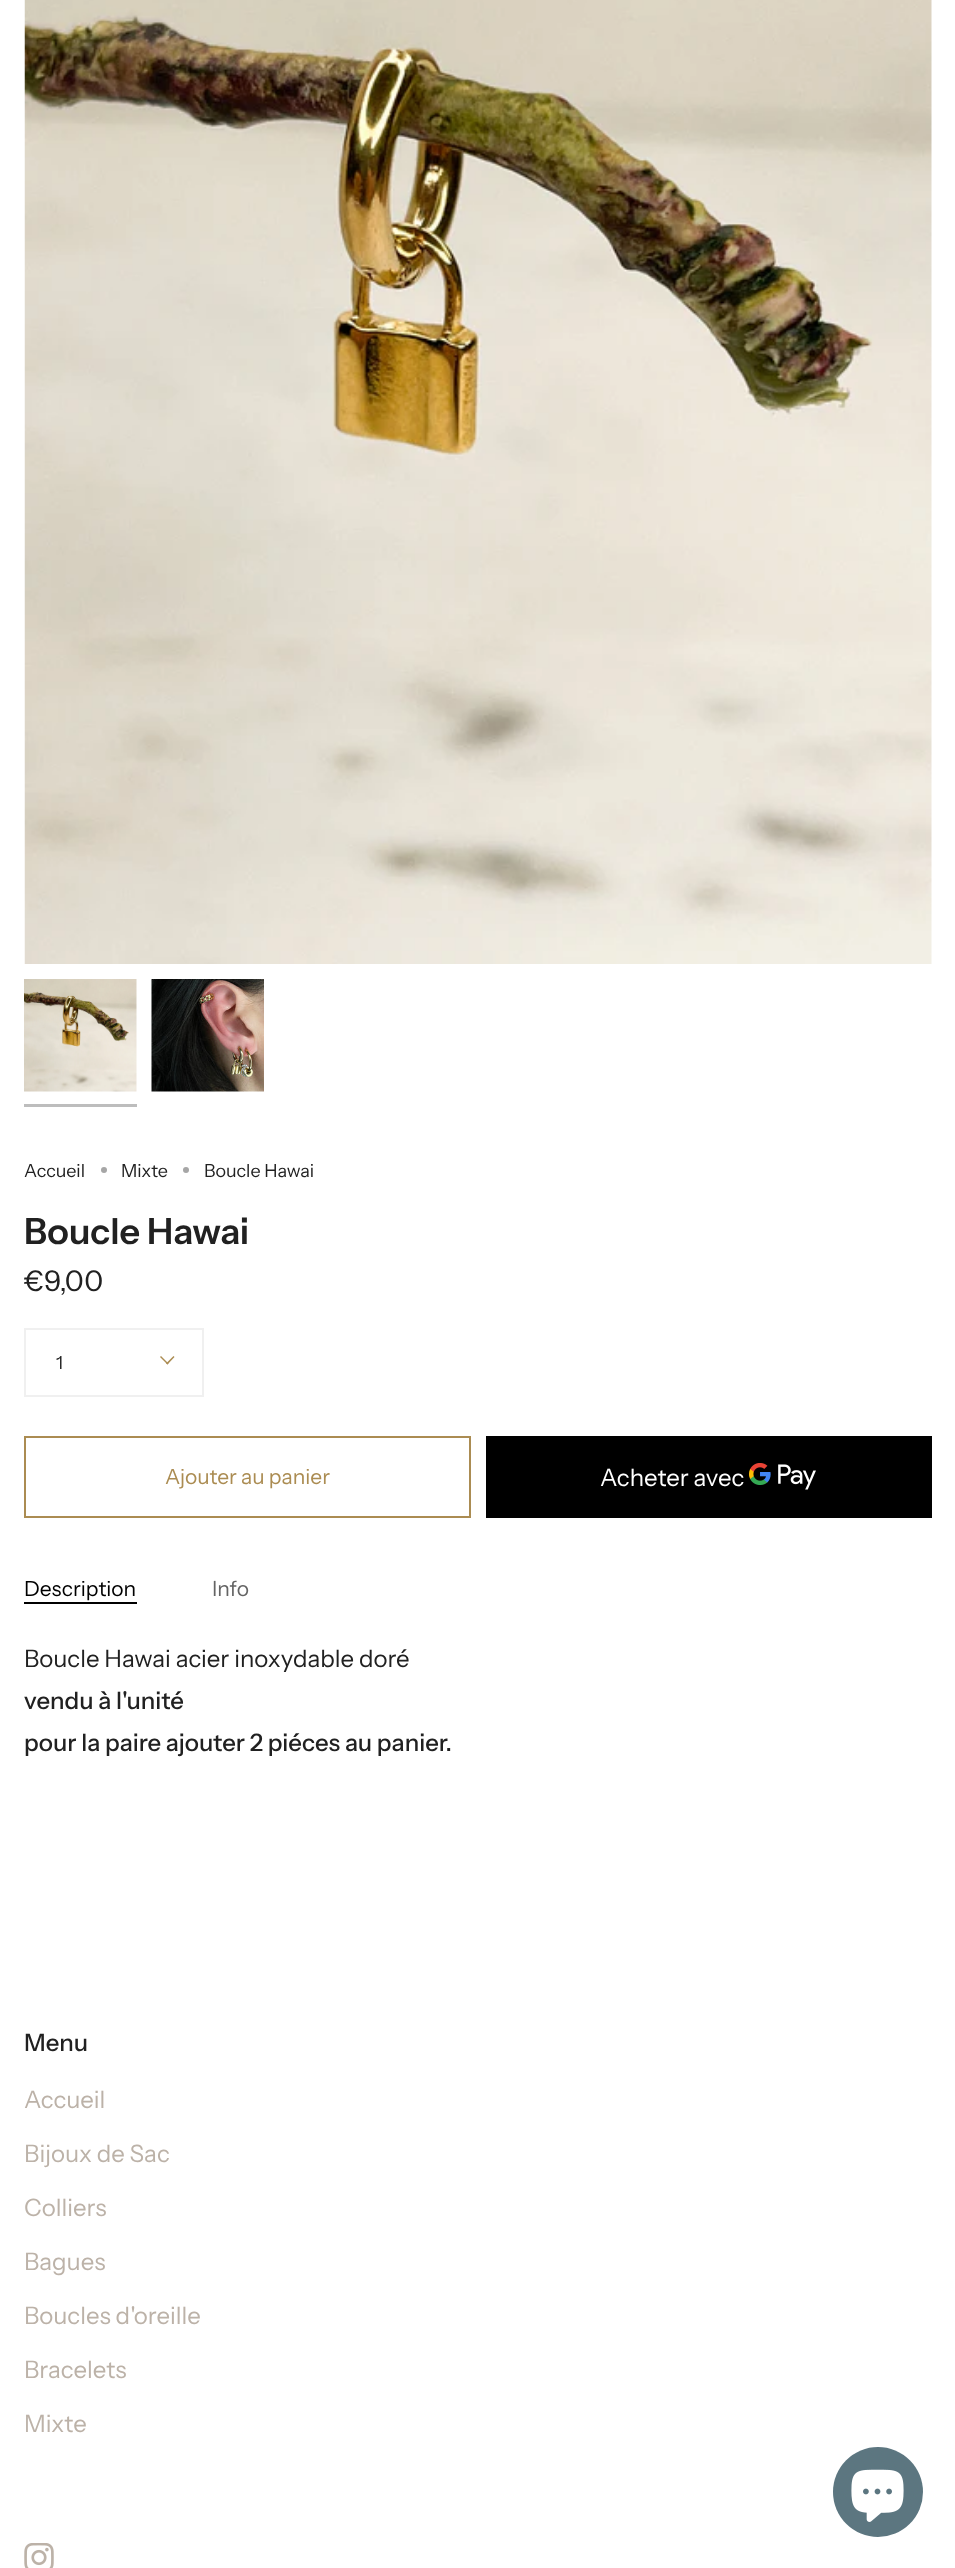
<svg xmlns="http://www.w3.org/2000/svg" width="955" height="2568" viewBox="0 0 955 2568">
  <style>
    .t1 { font: 18px Instrument Sans; fill: #212121; }
    .t2 { font: 600 36px Instrument Sans; fill: #212121; }
    .t3 { font: 28.5px Instrument Sans; fill: #212121; }
    .t4 { font: 21px Instrument Sans; fill: #ab8c52; }
    .t5 { font: 24px Instrument Sans; fill: #fff; }
    .t6 { font: 21px Instrument Sans; fill: #000; }
    .t7 { font: 21px Instrument Sans; fill: #646464; }
    .t8 { font: 24px Instrument Sans; fill: #212121; }
    .t9 { font: 500 24px Instrument Sans; fill: #212121; }
    .t10 { font: 24px Instrument Sans; fill: #bcb2a8; }
  </style>
  <rect width="100%" height="100%" fill="#fff"/>
  <image x="24" y="0" width="908" height="964" href="images/1.png"/>
  <image x="24" y="979" width="113" height="113" href="images/2.png"/>
  <rect x="24" y="1104" width="113" height="3" fill="#bdbdbd"/>
  <image x="151" y="979" width="113" height="113" href="images/3.png"/>
  <text x="24" y="1177" class="t1">Accueil</text>
  <circle cx="104" cy="1170" r="3" fill="#a6a6a6"/>
  <text x="121" y="1177" class="t1">Mixte</text>
  <circle cx="186" cy="1170" r="3" fill="#a6a6a6"/>
  <text x="204" y="1177" class="t1">Boucle Hawai</text>
  <text x="24" y="1244" class="t2">Boucle Hawai</text>
  <text x="24" y="1291" class="t3">€9,00</text>
  <rect x="25" y="1329" width="178" height="67" fill="none" stroke="#f0f0f0" stroke-width="2"/>
  <text x="56" y="1369" class="t1">1</text>
  <path d="M166 1363.5L173.5 1356L174.5 1357L167.5 1364.5Z" fill="#ab8c52"/>
  <path d="M160 1357L161 1356L168.5 1363.5L167.5 1364.5Z" fill="#ab8c52"/>
  <rect x="25" y="1437" width="445" height="80" fill="none" stroke="#ab8c52" stroke-width="2"/>
  <text x="165" y="1484" class="t4">Ajouter au panier</text>
  <rect x="486" y="1436" width="446" height="82" fill="#000"/>
  <text x="600" y="1486" class="t5">Acheter avec</text>
  <image x="749" y="1463" width="67" height="27" href="images/4.png"/>
  <rect x="24" y="1602" width="113" height="2" fill="#000"/>
  <text x="24" y="1596" class="t6">Description</text>
  <text x="212" y="1596" class="t7">Info</text>
  <text x="24" y="1667" class="t8">Boucle Hawai acier inoxydable doré</text>
  <text x="24" y="1709" class="t9">vendu à l'unité</text>
  <text x="24" y="1751" class="t9">pour la paire ajouter 2 piéces au panier.</text>
  <text x="24" y="2051" class="t9">Menu</text>
  <text x="24" y="2108" class="t10">Accueil</text>
  <text x="24" y="2162" class="t10">Bijoux de Sac</text>
  <text x="24" y="2216" class="t10">Colliers</text>
  <text x="24" y="2270" class="t10">Bagues</text>
  <text x="24" y="2324" class="t10">Boucles d'oreille</text>
  <text x="24" y="2378" class="t10">Bracelets</text>
  <text x="24" y="2432" class="t10">Mixte</text>
  <image x="24" y="2543" width="30" height="25" href="images/5.png"/>
  <circle cx="878" cy="2492" r="45" fill="#5c7680"/>
  <image x="851" y="2469" width="53" height="53" href="images/6.png"/>
</svg>
